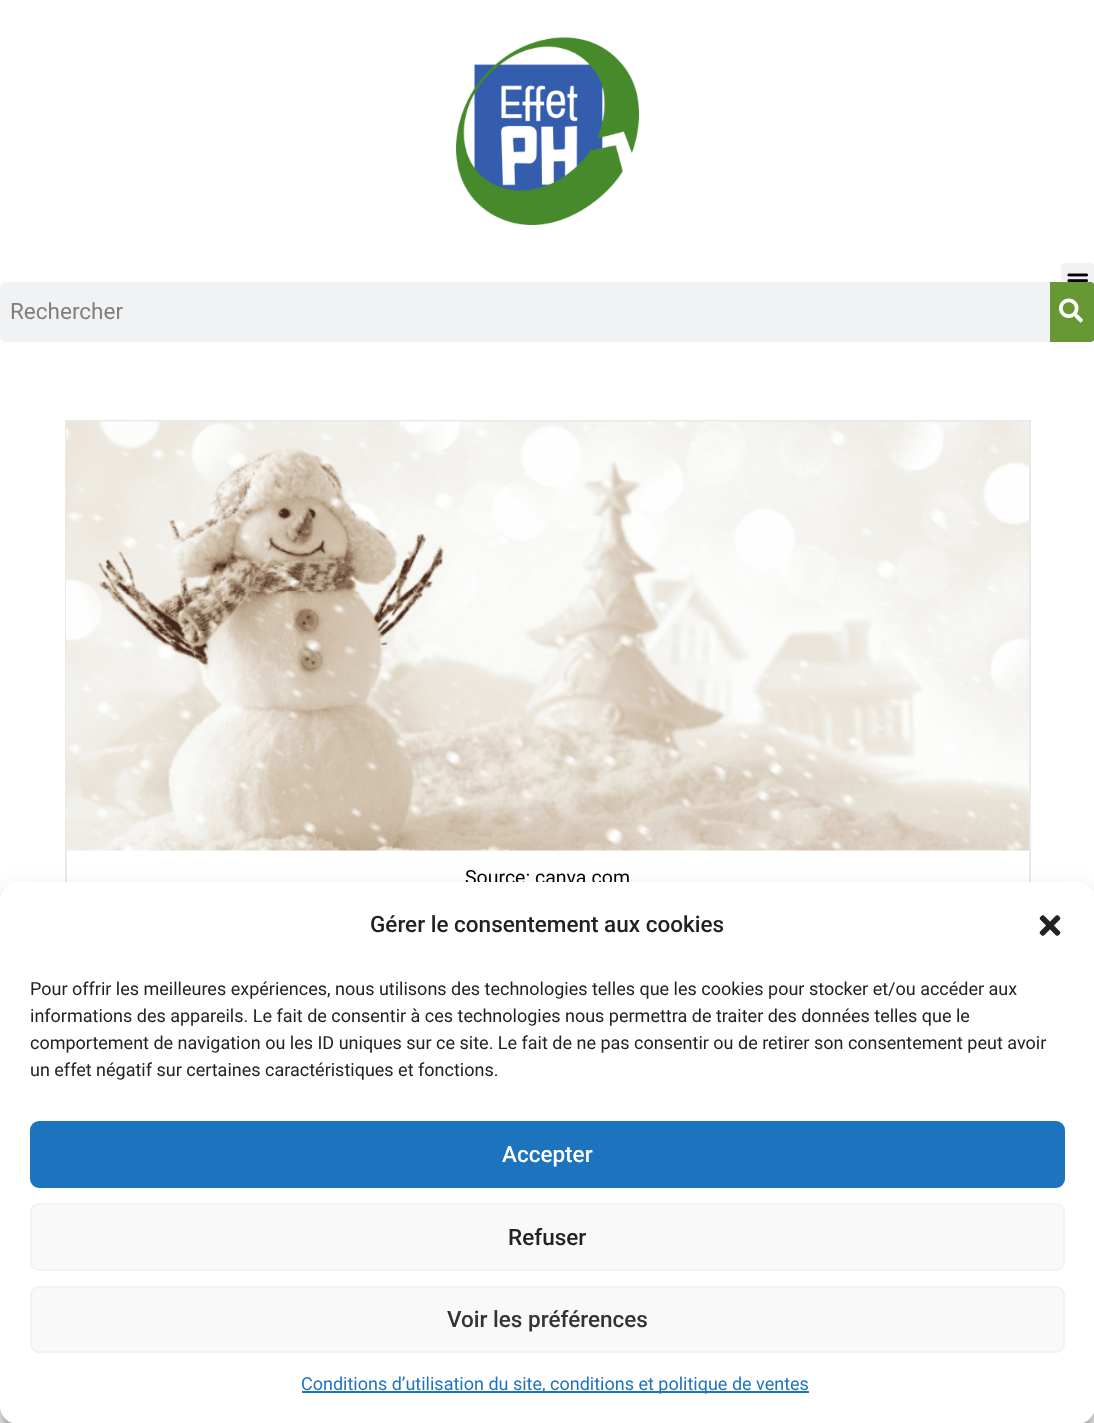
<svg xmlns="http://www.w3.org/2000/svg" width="1094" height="1423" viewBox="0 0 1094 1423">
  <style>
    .t1 { font: 22.5px Roboto; fill: #7f7f80; }
    .t2 { font: 19.5px Roboto; fill: #000; }
    .t3 { font: 500 22.5px Roboto; fill: #222; }
    .t4 { font: 18px Roboto; fill: #222; }
    .t5 { font: 500 22.5px Roboto; fill: #fff; }
    .t6 { font: 500 22.5px Roboto; fill: #333; }
    .t7 { font: 18px Roboto; fill: #1e73be; }
  </style>
  <rect width="100%" height="100%" fill="#fff"/>
  <image x="456" y="37" width="183" height="188" href="images/1.png"/>
  <rect x="1061" y="263" width="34" height="34" rx="5" fill="#f2f2f2"/>
  <image x="1067" y="273" width="21" height="9" href="images/2.png"/>
  <rect x="0" y="282" width="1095" height="60" rx="5" fill="#f1f2f3"/>
  <text x="10" y="319" class="t1">Rechercher</text>
  <path d="M1050 282H1090C1093 282 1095 284 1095 287V337C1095 340 1093 342 1090 342H1050Z" fill="#693"/>
  <image x="1059" y="298" width="24" height="25" href="images/3.png"/>
  <rect x="66" y="421" width="964" height="907" fill="none" stroke="#e9e9e9" stroke-width="2"/>
  <image x="66" y="421" width="963" height="430" href="images/4.png"/>
  <text x="465" y="884" class="t2">Source: canva.com</text>
  <rect x="0" y="891" width="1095" height="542" rx="18" fill="#0000003b" filter="blur(4.5px)"/>
  <rect x="0" y="897" width="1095" height="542" rx="18" fill="#00000030" filter="blur(15px)"/>
  <rect x="0" y="882" width="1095" height="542" rx="18" fill="#fff"/>
  <text x="370" y="932" class="t3">Gérer le consentement aux cookies</text>
  <image x="1039" y="915" width="22" height="21" href="images/5.png"/>
  <text x="30" y="995" class="t4">Pour offrir les meilleures expériences, nous utilisons des technologies telles que les cookies pour stocker et/ou accéder aux</text>
  <text x="30" y="1022" class="t4">informations des appareils. Le fait de consentir à ces technologies nous permettra de traiter des données telles que le</text>
  <text x="30" y="1049" class="t4">comportement de navigation ou les ID uniques sur ce site. Le fait de ne pas consentir ou de retirer son consentement peut avoir</text>
  <text x="30" y="1076" class="t4">un effet négatif sur certaines caractéristiques et fonctions.</text>
  <rect x="31" y="1122" width="1033" height="65" rx="8" fill="#1e73be" stroke="#1e73be" stroke-width="2"/>
  <text x="502" y="1162" class="t5">Accepter</text>
  <rect x="31" y="1204" width="1033" height="66" rx="8" fill="#f9f9f9" stroke="#f2f2f2" stroke-width="2"/>
  <text x="508" y="1245" class="t3">Refuser</text>
  <rect x="31" y="1287" width="1033" height="65" rx="8" fill="#f9f9f9" stroke="#f2f2f2" stroke-width="2"/>
  <text x="447" y="1327" class="t6">Voir les préférences</text>
  <rect x="302" y="1391" width="507" height="2" fill="#1e73be"/>
  <text x="301" y="1390" class="t7">Conditions d’utilisation du site, conditions et politique de ventes</text>
</svg>
